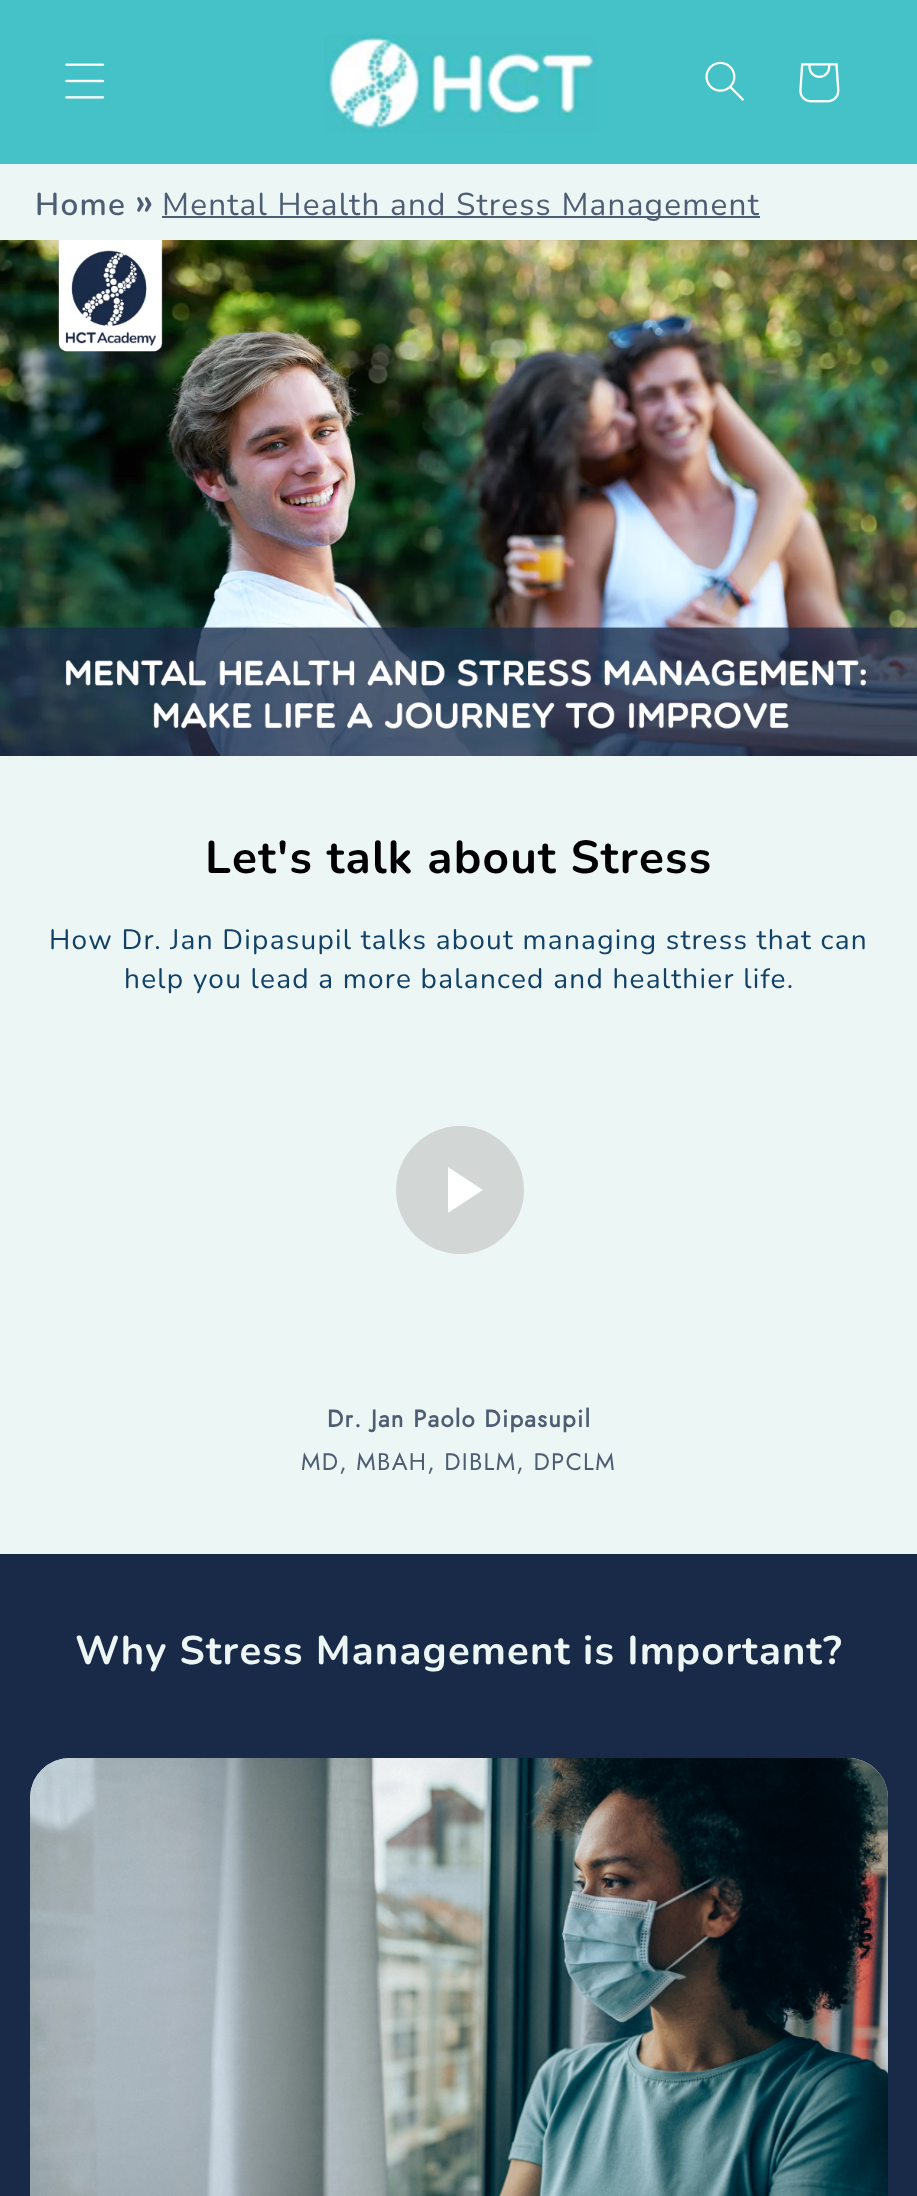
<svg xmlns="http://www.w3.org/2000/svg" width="917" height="2196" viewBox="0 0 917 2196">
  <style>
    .t1 { font: 600 31.5px Nunito; letter-spacing: 1.25px; fill: #4e5d73; }
    .t2 { font: 600 40px Nunito; letter-spacing: 1.25px; fill: #4e5d73; }
    .t3 { font: 200 31.5px Nunito; letter-spacing: 1.25px; fill: #4e5d73; }
    .t4 { font: bold 46px Nunito; letter-spacing: 1.2px; fill: #000; }
    .t5 { font: 200 28px Nunito; letter-spacing: 1.25px; fill: #124168; }
    .t6 { font: bold 24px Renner; letter-spacing: 1.25px; fill: #4e5d73; }
    .t7 { font: 24px Renner; letter-spacing: 1.25px; fill: #4e5d73; }
    .t8 { font: bold 40px Nunito; letter-spacing: 1.2px; fill: #ecf6f5; }
  </style>
  <rect width="100%" height="100%" fill="#ecf6f5"/>
  <rect x="0" y="0" width="917" height="164" fill="#45c2c7"/>
  <image x="65" y="63" width="40" height="36" href="images/1.png"/>
  <image x="324" y="34" width="274" height="99" href="images/2.png"/>
  <image x="705" y="61" width="39" height="40" href="images/3.png"/>
  <image x="799" y="63" width="41" height="40" href="images/4.png"/>
  <text x="35" y="215" class="t1">Home</text>
  <text x="135" y="215" class="t2">»</text>
  <rect x="162" y="216" width="598" height="2" fill="#4e5d73"/>
  <text x="162" y="215" class="t3">Mental Health and Stress Management</text>
  <image x="0" y="240" width="917" height="516" href="images/5.png"/>
  <text x="205" y="873" class="t4">Let's talk about Stress</text>
  <text x="49" y="949" class="t5">How Dr. Jan Dipasupil talks about managing stress that can</text>
  <text x="124" y="988" class="t5">help you lead a more balanced and healthier life.</text>
  <path d="M460 1254C495 1254 524 1225 524 1190C524 1155 495 1126 460 1126C425 1126 396 1155 396 1190C396 1225 425 1254 460 1254Z" fill="#d2d6d5"/>
  <path d="M448 1213V1167L483 1190Z" fill="#fff"/>
  <text x="327" y="1427" class="t6">Dr. Jan Paolo Dipasupil</text>
  <text x="301" y="1470" class="t7">MD, MBAH, DIBLM, DPCLM</text>
  <rect x="0" y="1554" width="917" height="642" fill="#192a48"/>
  <text x="75" y="1664" class="t8">Why Stress Management is Important?</text>
  <rect x="30" y="1758" width="858" height="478" rx="40" fill="#ecf6f5"/>
  <image x="30" y="1758" width="858" height="438" href="images/6.png"/>
</svg>
